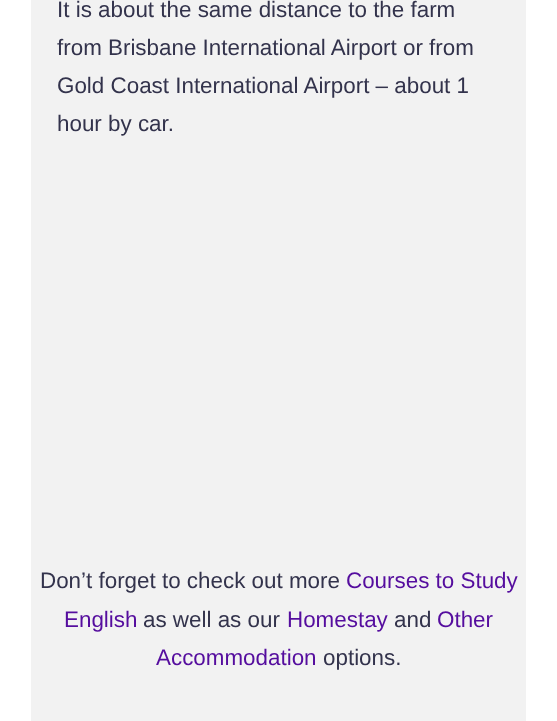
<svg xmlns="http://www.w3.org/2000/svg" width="557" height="721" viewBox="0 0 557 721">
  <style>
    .t1 { font: 22.4px Liberation Sans; fill: #33334c; }
    .t2 { font: 22.4px Liberation Sans; fill: #550d9e; }
  </style>
  <rect width="100%" height="100%" fill="#fff"/>
  <rect x="31" y="0" width="495" height="721" fill="#f2f2f2"/>
  <text x="57" y="17" class="t1">It is about the same distance to the farm</text>
  <text x="57" y="55" class="t1">from Brisbane International Airport or from</text>
  <text x="57" y="93" class="t1">Gold Coast International Airport – about 1</text>
  <text x="57" y="131" class="t1">hour by car.</text>
  <text x="40" y="588" class="t1">Don’t forget to check out more</text>
  <text x="346" y="588" class="t2">Courses to Study</text>
  <text x="64" y="627" class="t2">English</text>
  <text x="143" y="627" class="t1">as well as our</text>
  <text x="287" y="627" class="t2">Homestay</text>
  <text x="394" y="627" class="t1">and</text>
  <text x="437" y="627" class="t2">Other</text>
  <text x="156" y="665" class="t2">Accommodation</text>
  <text x="323" y="665" class="t1">options.</text>
</svg>
